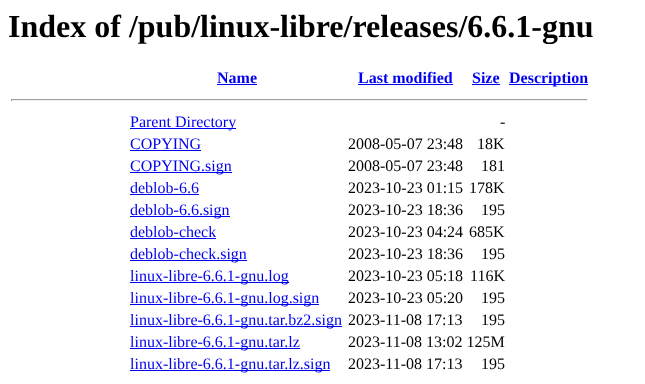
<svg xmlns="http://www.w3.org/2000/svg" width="645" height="384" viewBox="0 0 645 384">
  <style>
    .t1 { font: bold 32px Liberation Serif; fill: #000; }
    .t2 { font: bold 16px Liberation Serif; fill: #00e; }
    .t3 { font: 16px Liberation Serif; fill: #00e; }
    .t4 { font: 16px Liberation Serif; fill: #000; }
  </style>
  <rect width="100%" height="100%" fill="#fff"/>
  <text x="8" y="37" class="t1">Index of /pub/linux-libre/releases/6.6.1-gnu</text>
  <text x="217" y="83" class="t2">Name</text>
  <rect x="217" y="84" width="40" height="1" fill="#00e"/>
  <text x="358" y="83" class="t2">Last modified</text>
  <rect x="358" y="84" width="95" height="1" fill="#00e"/>
  <text x="472" y="83" class="t2">Size</text>
  <rect x="472" y="84" width="28" height="1" fill="#00e"/>
  <rect x="509" y="84" width="79" height="1" fill="#00e"/>
  <text x="509" y="83" class="t2">Description</text>
  <rect x="11" y="99" width="577" height="1" fill="#9f9f9f"/>
  <rect x="587" y="99" width="1" height="2" fill="#eee"/>
  <rect x="11" y="100" width="577" height="1" fill="#eee"/>
  <rect x="11" y="99" width="1" height="2" fill="#9f9f9f"/>
  <rect x="130" y="128" width="106" height="1" fill="#00e"/>
  <text x="130" y="127" class="t3">Parent Directory</text>
  <text x="500" y="127" class="t4">-</text>
  <text x="130" y="149" class="t3">COPYING</text>
  <rect x="130" y="150" width="71" height="1" fill="#00e"/>
  <text x="348" y="149" class="t4">2008-05-07 23:48</text>
  <text x="477" y="149" class="t4">18K</text>
  <rect x="130" y="172" width="102" height="1" fill="#00e"/>
  <text x="130" y="171" class="t3">COPYING.sign</text>
  <text x="348" y="171" class="t4">2008-05-07 23:48</text>
  <text x="481" y="171" class="t4">181</text>
  <text x="130" y="193" class="t3">deblob-6.6</text>
  <rect x="130" y="194" width="69" height="1" fill="#00e"/>
  <text x="348" y="193" class="t4">2023-10-23 01:15</text>
  <text x="469" y="193" class="t4">178K</text>
  <rect x="130" y="216" width="100" height="1" fill="#00e"/>
  <text x="130" y="215" class="t3">deblob-6.6.sign</text>
  <text x="348" y="215" class="t4">2023-10-23 18:36</text>
  <text x="481" y="215" class="t4">195</text>
  <text x="130" y="237" class="t3">deblob-check</text>
  <rect x="130" y="238" width="86" height="1" fill="#00e"/>
  <text x="348" y="237" class="t4">2023-10-23 04:24</text>
  <text x="469" y="237" class="t4">685K</text>
  <rect x="130" y="260" width="117" height="1" fill="#00e"/>
  <text x="130" y="259" class="t3">deblob-check.sign</text>
  <text x="348" y="259" class="t4">2023-10-23 18:36</text>
  <text x="481" y="259" class="t4">195</text>
  <rect x="130" y="282" width="159" height="1" fill="#00e"/>
  <text x="130" y="281" class="t3">linux-libre-6.6.1-gnu.log</text>
  <text x="348" y="281" class="t4">2023-10-23 05:18</text>
  <text x="470" y="281" class="t4">116K</text>
  <rect x="130" y="304" width="189" height="1" fill="#00e"/>
  <text x="130" y="303" class="t3">linux-libre-6.6.1-gnu.log.sign</text>
  <text x="348" y="303" class="t4">2023-10-23 05:20</text>
  <text x="481" y="303" class="t4">195</text>
  <rect x="130" y="326" width="212" height="1" fill="#00e"/>
  <text x="130" y="325" class="t3">linux-libre-6.6.1-gnu.tar.bz2.sign</text>
  <text x="348" y="325" class="t4">2023-11-08 17:13</text>
  <text x="481" y="325" class="t4">195</text>
  <rect x="130" y="348" width="170" height="1" fill="#00e"/>
  <text x="130" y="347" class="t3">linux-libre-6.6.1-gnu.tar.lz</text>
  <text x="348" y="347" class="t4">2023-11-08 13:02 125M</text>
  <rect x="130" y="370" width="200" height="1" fill="#00e"/>
  <text x="130" y="369" class="t3">linux-libre-6.6.1-gnu.tar.lz.sign</text>
  <text x="348" y="369" class="t4">2023-11-08 17:13</text>
  <text x="481" y="369" class="t4">195</text>
</svg>
